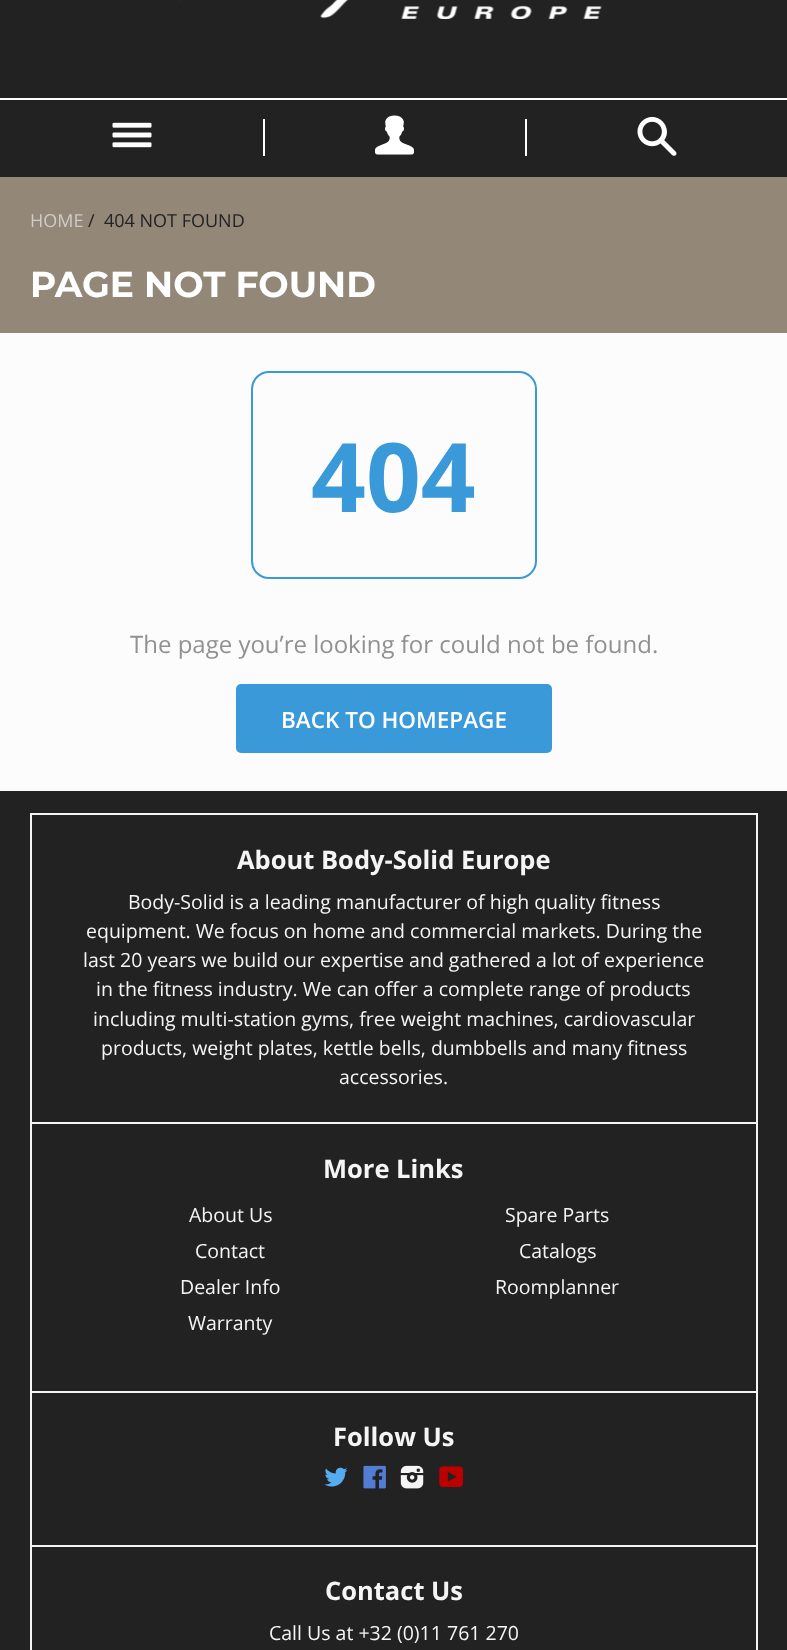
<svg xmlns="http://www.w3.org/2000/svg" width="787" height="1650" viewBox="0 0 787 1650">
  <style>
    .t1 { font: 18px Open Sans; fill: #cfcbc6; }
    .t2 { font: 18px Open Sans; fill: #222; }
    .t3 { font: 100 36px Montserrat; fill: #fff; }
    .t4 { font: bold 96px Open Sans; fill: #3a9ad9; }
    .t5 { font: 24px Open Sans; fill: #919191; }
    .t6 { font: 600 22.5px Open Sans; fill: #fff; }
    .t7 { font: bold 25.5px Open Sans; fill: #f5f5f5; }
    .t8 { font: 19.5px Open Sans; fill: #f5f5f5; }
  </style>
  <rect width="100%" height="100%" fill="#fcfcfc"/>
  <rect x="0" y="0" width="787" height="177" fill="#222"/>
  <image x="179" y="0" width="423" height="19" href="images/1.png"/>
  <rect x="0" y="98" width="787" height="2" fill="#fff"/>
  <image x="112" y="122" width="40" height="26" href="images/2.png"/>
  <rect x="263" y="119" width="2" height="37" fill="#fff"/>
  <image x="375" y="115" width="39" height="40" href="images/3.png"/>
  <rect x="525" y="119" width="2" height="37" fill="#fff"/>
  <image x="637" y="116" width="40" height="40" href="images/4.png"/>
  <rect x="0" y="177" width="787" height="156" fill="#938778"/>
  <text x="30" y="227" class="t1">HOME</text>
  <text x="88" y="227" class="t2">/</text>
  <text x="104" y="227" class="t2">404 NOT FOUND</text>
  <text x="30" y="297" class="t3">PAGE NOT FOUND</text>
  <rect x="252" y="372" width="284" height="206" rx="17" fill="none" stroke="#3a9ad9" stroke-width="2"/>
  <text x="311" y="512" class="t4">404</text>
  <text x="130" y="653" class="t5">The page you’re looking for could not be found.</text>
  <rect x="236" y="684" width="316" height="69" rx="5" fill="#3a9ad9"/>
  <text x="281" y="728" class="t6">BACK TO HOMEPAGE</text>
  <rect x="0" y="791" width="787" height="859" fill="#222"/>
  <rect x="30" y="813" width="728" height="2" fill="#f5f5f5"/>
  <rect x="756" y="813" width="2" height="837" fill="#f5f5f5"/>
  <rect x="30" y="813" width="2" height="837" fill="#f5f5f5"/>
  <rect x="32" y="1122" width="724" height="2" fill="#f5f5f5"/>
  <text x="237" y="869" class="t7">About Body-Solid Europe</text>
  <text x="128" y="909" class="t8">Body-Solid is a leading manufacturer of high quality fitness</text>
  <text x="86" y="938" class="t8">equipment. We focus on home and commercial markets. During the</text>
  <text x="83" y="967" class="t8">last 20 years we build our expertise and gathered a lot of experience</text>
  <text x="96" y="996" class="t8">in the fitness industry. We can offer a complete range of products</text>
  <text x="93" y="1026" class="t8">including multi-station gyms, free weight machines, cardiovascular</text>
  <text x="101" y="1055" class="t8">products, weight plates, kettle bells, dumbbells and many fitness</text>
  <text x="339" y="1084" class="t8">accessories.</text>
  <rect x="32" y="1391" width="724" height="2" fill="#f5f5f5"/>
  <text x="323" y="1178" class="t7">More Links</text>
  <text x="189" y="1222" class="t8">About Us</text>
  <text x="505" y="1222" class="t8">Spare Parts</text>
  <text x="195" y="1258" class="t8">Contact</text>
  <text x="519" y="1258" class="t8">Catalogs</text>
  <text x="180" y="1294" class="t8">Dealer Info</text>
  <text x="495" y="1294" class="t8">Roomplanner</text>
  <text x="188" y="1330" class="t8">Warranty</text>
  <rect x="32" y="1545" width="724" height="2" fill="#f5f5f5"/>
  <text x="333" y="1446" class="t7">Follow Us</text>
  <image x="324" y="1467" width="24" height="20" href="images/5.png"/>
  <image x="363" y="1465" width="23" height="24" href="images/6.png"/>
  <image x="400" y="1465" width="24" height="24" href="images/7.png"/>
  <image x="439" y="1466" width="24" height="21" href="images/8.png"/>
  <text x="325" y="1600" class="t7">Contact Us</text>
  <text x="269" y="1640" class="t8">Call Us at +32 (0)11 761 270</text>
</svg>
